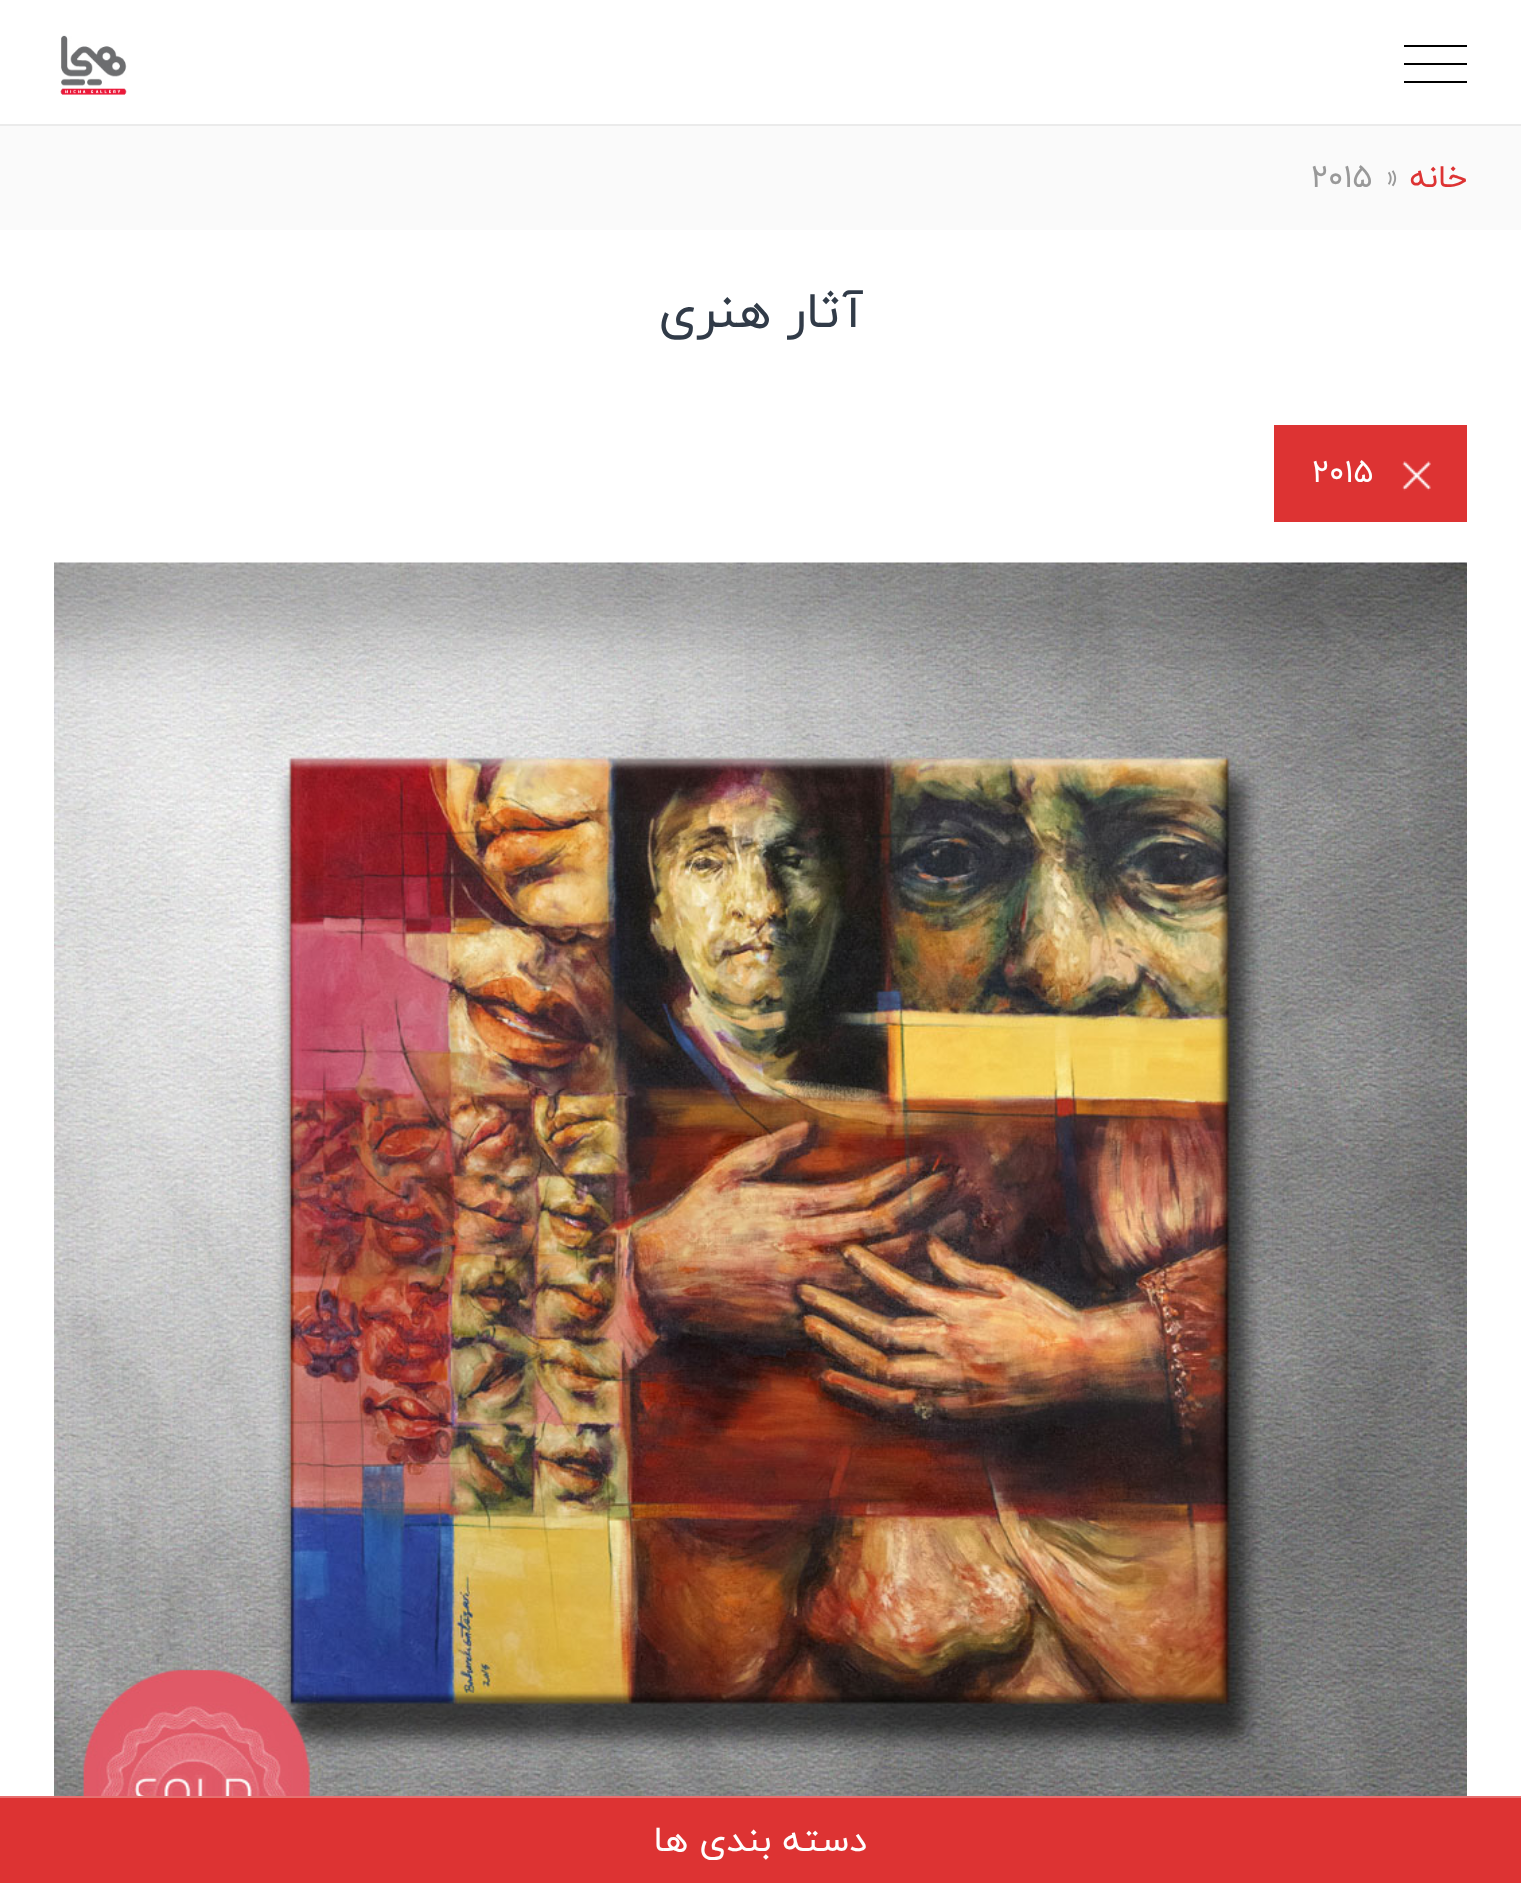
<svg xmlns="http://www.w3.org/2000/svg" width="1521" height="1883" viewBox="0 0 1521 1883">
  <style>
    .t1 { font: 32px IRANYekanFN; direction: rtl; fill: #d33; }
    .t2 { font: 32px IRANYekanFN; fill: #999; }
    .t3 { font: 50.5px IRANYekanFN; direction: rtl; fill: #313b48; }
    .t4 { font: 32px IRANYekanFN; fill: #fff; }
    .t5 { font: 36px IRANYekanFN; direction: rtl; fill: #fff; }
  </style>
  <rect width="100%" height="100%" fill="#fff"/>
  <rect x="0" y="124" width="1521" height="2" fill="#ebebeb"/>
  <rect x="1404" y="45" width="63" height="2" fill="#000"/>
  <rect x="1404" y="63" width="63" height="2" fill="#000"/>
  <rect x="1404" y="81" width="63" height="2" fill="#000"/>
  <image x="60" y="35" width="67" height="60" href="images/1.png"/>
  <rect x="0" y="126" width="1521" height="104" fill="#fafafa"/>
  <text x="1467" y="187" class="t1">خانه</text>
  <text x="1384" y="187" class="t2">»</text>
  <text x="1311" y="187" class="t2">2015</text>
  <text x="863" y="327" class="t3">آثار هنری</text>
  <rect x="1274" y="425" width="193" height="97" fill="#d33"/>
  <image x="1402" y="461" width="29" height="30" href="images/2.png"/>
  <text x="1312" y="482" class="t4">2015</text>
  <image x="54" y="562" width="1413" height="1234" href="images/3.png"/>
  <rect x="0" y="1798" width="1521" height="85" fill="#d33"/>
  <rect x="0" y="1796" width="1521" height="2" fill="#e77070"/>
  <text x="867" y="1851" class="t5">دسته بندی ها</text>
</svg>
